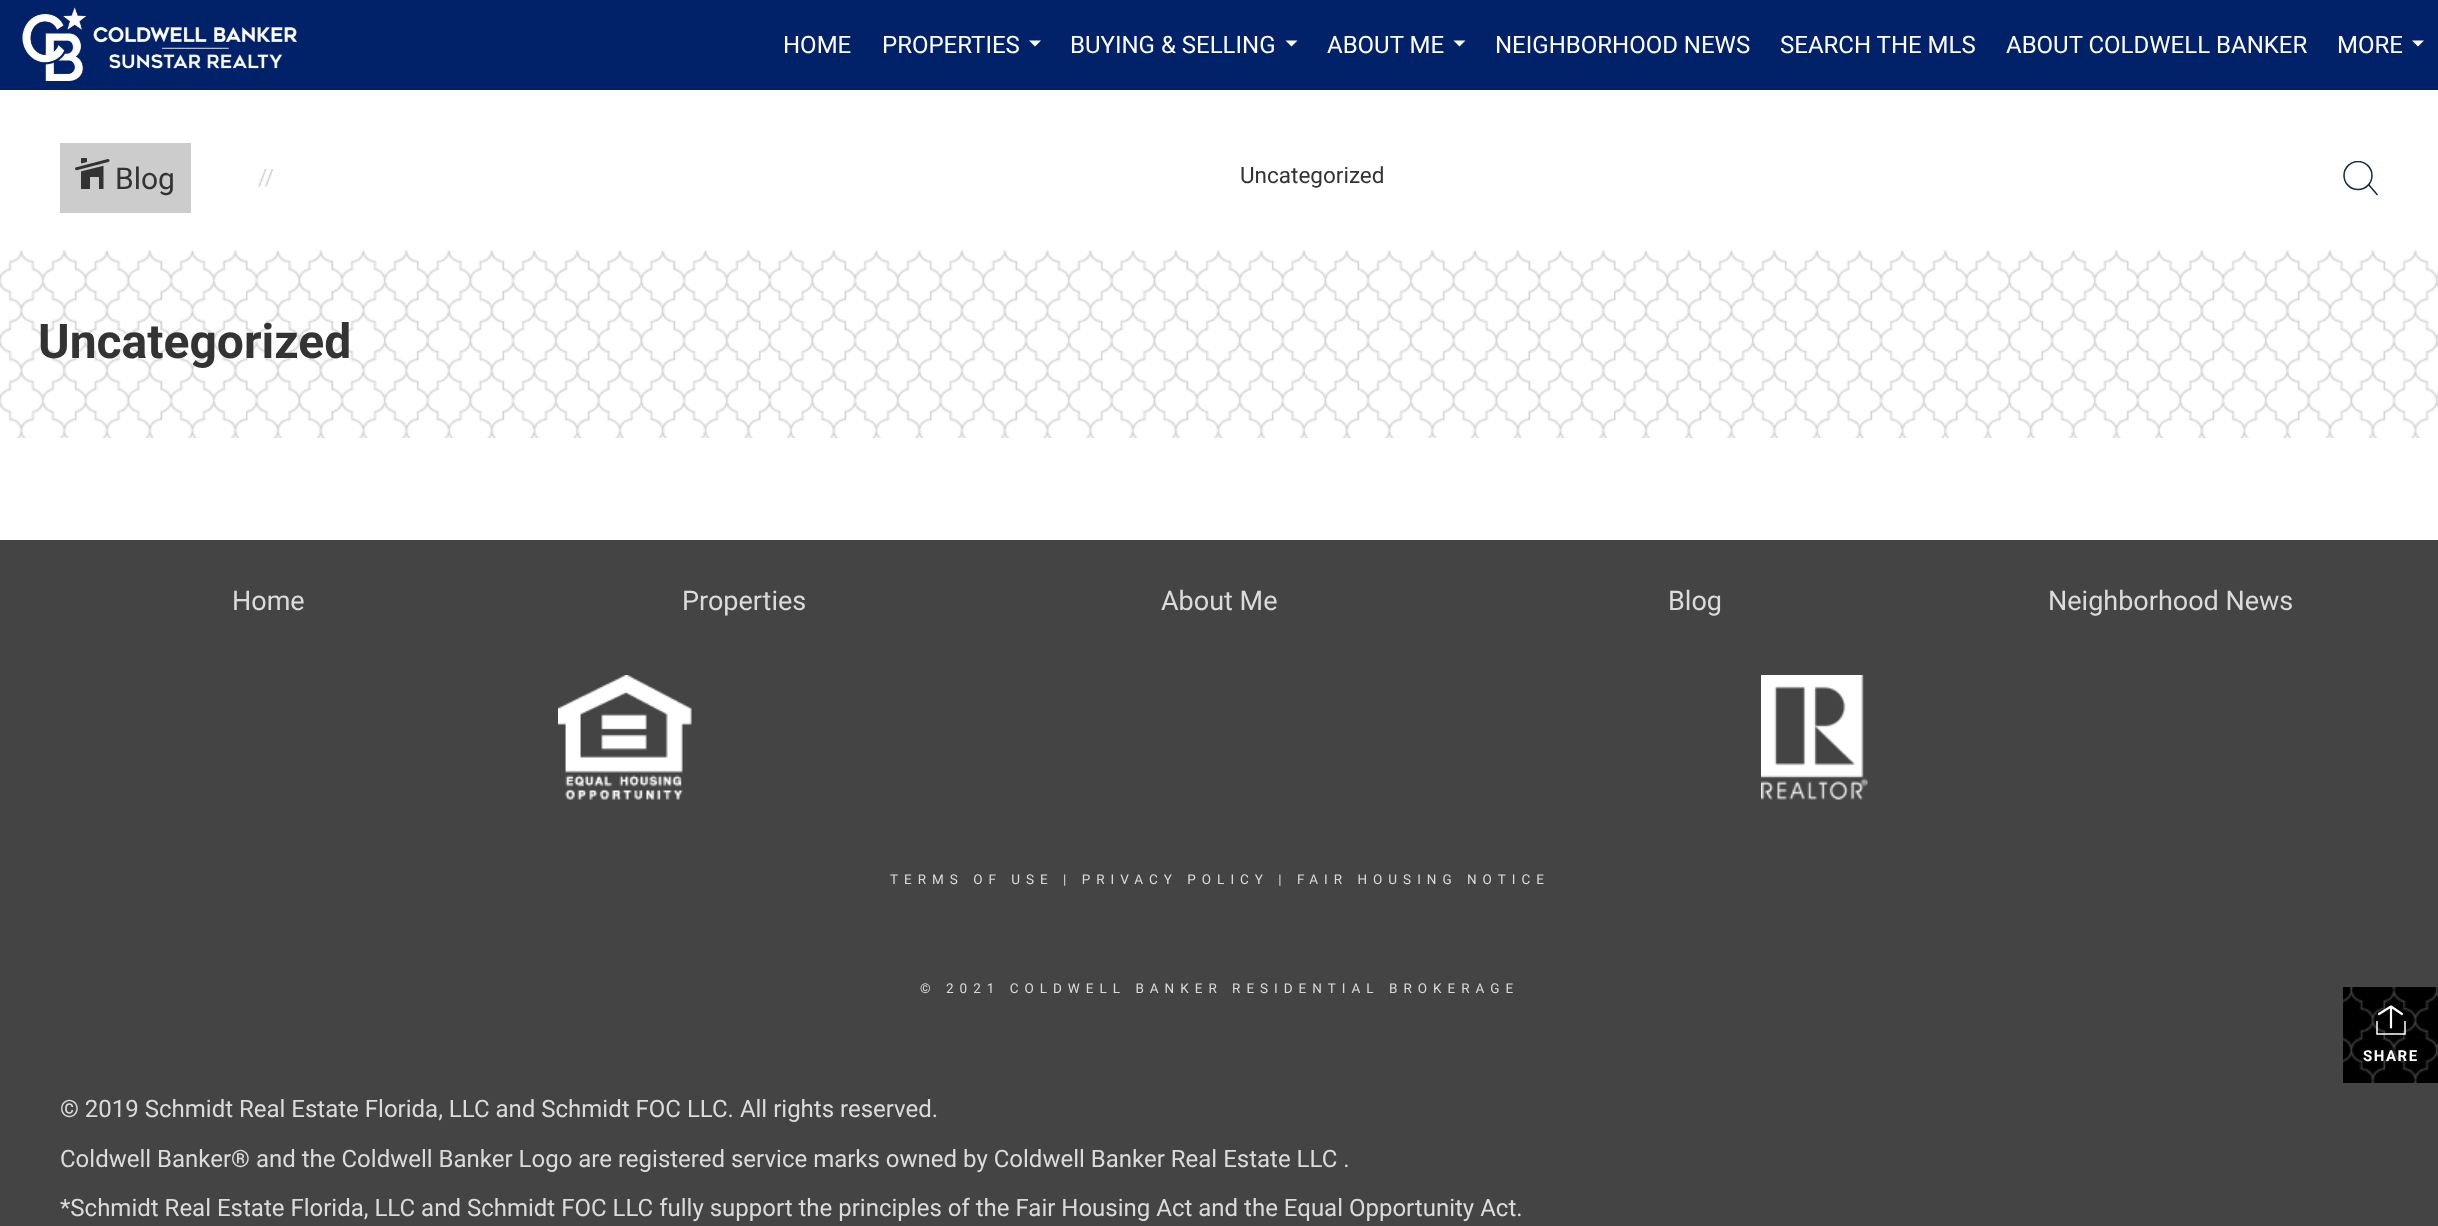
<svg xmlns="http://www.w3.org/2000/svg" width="2438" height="1226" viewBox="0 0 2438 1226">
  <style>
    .t1 { font: 24px Roboto; fill: #fff; }
    .t2 { font: 30px Roboto; fill: #333; }
    .t3 { font: 22.5px Roboto; fill: #d5d5d5; }
    .t4 { font: 22.5px Roboto; fill: #333; }
    .t5 { font: bold 48px Roboto; fill: #333; }
    .t6 { font: bold 15px Roboto; letter-spacing: 1.5px; fill: #fff; }
    .t7 { font: 27px Roboto; fill: #dbdbdb; }
    .t8 { font: 13.5px Roboto; letter-spacing: 6px; fill: #dbdbdb; }
    .t9 { font: 24px Roboto; fill: #dbdbdb; }
  </style>
  <defs>
    <clipPath id="clip1"><rect x="2343" y="161" width="36" height="36"/></clipPath>
  </defs>
  <rect width="100%" height="100%" fill="#fff"/>
  <rect x="0" y="0" width="2438" height="90" fill="#012169"/>
  <image x="22" y="7" width="275" height="74" href="images/1.png"/>
  <text x="783" y="53" class="t1">HOME</text>
  <text x="882" y="53" class="t1">PROPERTIES</text>
  <path d="M1029 40.5H1041L1035 46.5Z" fill="#fff"/>
  <text x="1070" y="53" class="t1">BUYING &amp; SELLING</text>
  <path d="M1285.5 40.5H1297.5L1291.5 46.5Z" fill="#fff"/>
  <text x="1327" y="53" class="t1">ABOUT ME</text>
  <path d="M1453.5 40.5H1465.5L1459.5 46.5Z" fill="#fff"/>
  <text x="1495" y="53" class="t1">NEIGHBORHOOD NEWS</text>
  <text x="1780" y="53" class="t1">SEARCH THE MLS</text>
  <text x="2006" y="53" class="t1">ABOUT COLDWELL BANKER</text>
  <text x="2337" y="53" class="t1">MORE</text>
  <path d="M2412 40.5H2424L2418 46.5Z" fill="#fff"/>
  <rect x="60" y="143" width="131" height="70" fill="#ccc"/>
  <image x="75" y="158" width="35" height="31" href="images/2.png"/>
  <text x="115" y="189" class="t2">Blog</text>
  <text x="258" y="185" class="t3">//</text>
  <text x="1240" y="183" class="t4">Uncategorized</text>
  <g clip-path="url(#clip1)">
    <circle cx="2358" cy="175.5" r="14" fill="none" stroke="#0e2b4a" stroke-width="1.5"/>
  </g>
  <path d="M2368.5 184.5L2377.5 195" fill="none" stroke="#0e2b4a" stroke-width="1.5"/>
  <image x="0" y="250" width="2438" height="188" href="images/3.png"/>
  <text x="38" y="358" class="t5">Uncategorized</text>
  <rect x="0" y="540" width="2438" height="686" fill="#444"/>
  <image x="2343" y="987" width="95" height="96" href="images/4.png"/>
  <path d="M2377 1021.5V1034H2405V1021.5" fill="none" stroke="#fff" stroke-width="1.5" stroke-linecap="round"/>
  <path d="M2391 1027.5V1007" fill="none" stroke="#fff" stroke-width="2.2" stroke-linecap="round"/>
  <path d="M2379 1014L2391 1006.5L2402 1014" fill="none" stroke="#fff" stroke-width="2.2" stroke-linecap="round" stroke-linejoin="round"/>
  <text x="2363" y="1061" class="t6">SHARE</text>
  <text x="232" y="610" class="t7">Home</text>
  <text x="682" y="610" class="t7">Properties</text>
  <text x="1161" y="610" class="t7">About Me</text>
  <text x="1668" y="610" class="t7">Blog</text>
  <text x="2048" y="610" class="t7">Neighborhood News</text>
  <image x="558" y="675" width="134" height="125" href="images/5.png"/>
  <image x="1761" y="675" width="107" height="125" href="images/6.png"/>
  <text x="890" y="884" class="t8">TERMS OF USE | PRIVACY POLICY | FAIR HOUSING NOTICE</text>
  <text x="920" y="993" class="t8">© 2021 COLDWELL BANKER RESIDENTIAL BROKERAGE</text>
  <text x="60" y="1117" class="t9">© 2019 Schmidt Real Estate Florida, LLC and Schmidt FOC LLC. All rights reserved.</text>
  <text x="60" y="1167" class="t9">Coldwell Banker® and the Coldwell Banker Logo are registered service marks owned by Coldwell Banker Real Estate LLC .</text>
  <text x="60" y="1216" class="t9">*Schmidt Real Estate Florida, LLC and Schmidt FOC LLC fully support the principles of the Fair Housing Act and the Equal Opportunity Act.</text>
</svg>
